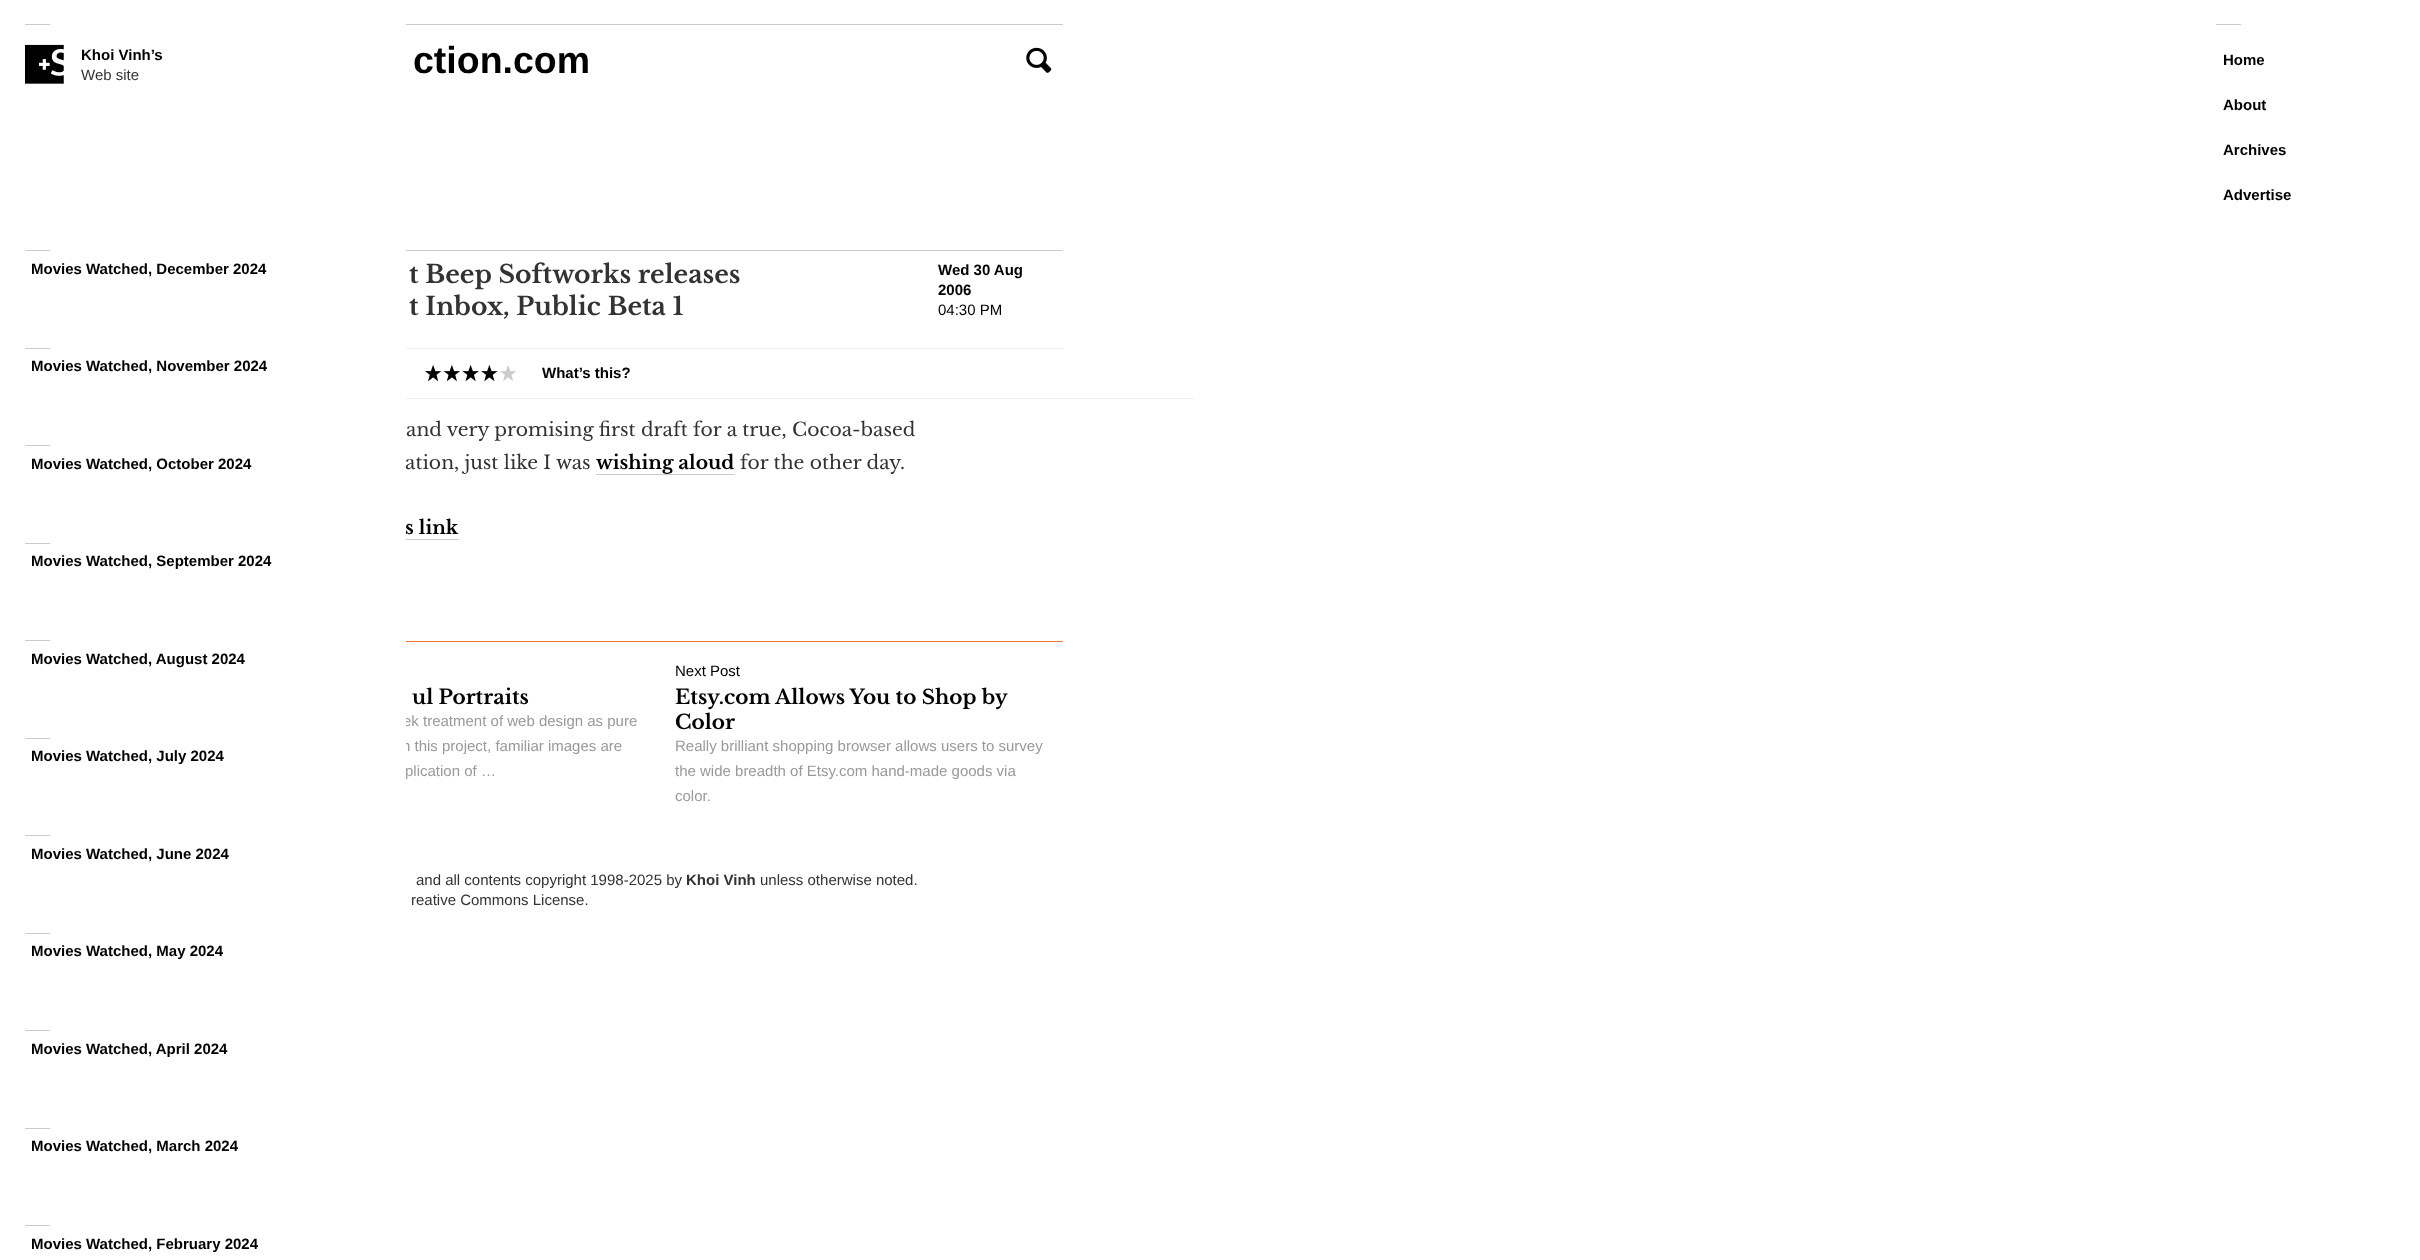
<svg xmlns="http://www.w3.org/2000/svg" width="2420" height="1260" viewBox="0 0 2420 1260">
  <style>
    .t1 { font: bold 15px Liberation Sans; fill: #000; }
    .t2 { font: 15px Liberation Sans; fill: #333; }
    .t3 { font: 15px Liberation Sans; fill: #999; }
    .t4 { font: bold 37.5px Liberation Sans; fill: #000; }
    .t5 { font: bold 25px Libre Baskerville; fill: #333; }
    .t6 { font: 15px Liberation Sans; fill: #000; }
    .t7 { font: 18.75px Libre Baskerville; fill: #333; }
    .t8 { font: bold 18.75px Libre Baskerville; fill: #000; }
    .t9 { font: bold 20px Libre Baskerville; fill: #000; }
    .t10 { font: bold 15px Liberation Sans; fill: #333; }
  </style>
  <rect width="100%" height="100%" fill="#fff"/>
  <rect x="25" y="24" width="25" height="1" fill="#ccc"/>
  <image x="25" y="44" width="39" height="40" href="images/1.png"/>
  <text x="81" y="60" class="t1">Khoi Vinh’s</text>
  <text x="81" y="80" class="t2">Web site</text>
  <text x="403" y="726" class="t3">ek treatment of web design as pure</text>
  <text x="402" y="751" class="t3">n this project, familiar images are</text>
  <rect x="403" y="718" width="3" height="33" fill="#fff"/>
  <rect x="25" y="250" width="25" height="1" fill="#ccc"/>
  <text x="31" y="274" class="t1">Movies Watched, December 2024</text>
  <rect x="25" y="348" width="25" height="1" fill="#ccc"/>
  <text x="31" y="371" class="t1">Movies Watched, November 2024</text>
  <rect x="25" y="445" width="25" height="1" fill="#ccc"/>
  <text x="31" y="469" class="t1">Movies Watched, October 2024</text>
  <rect x="25" y="543" width="25" height="1" fill="#ccc"/>
  <text x="31" y="566" class="t1">Movies Watched, September 2024</text>
  <rect x="25" y="640" width="25" height="1" fill="#ccc"/>
  <text x="31" y="664" class="t1">Movies Watched, August 2024</text>
  <rect x="25" y="738" width="25" height="1" fill="#ccc"/>
  <text x="31" y="761" class="t1">Movies Watched, July 2024</text>
  <rect x="25" y="835" width="25" height="1" fill="#ccc"/>
  <text x="31" y="859" class="t1">Movies Watched, June 2024</text>
  <rect x="25" y="933" width="25" height="1" fill="#ccc"/>
  <text x="31" y="956" class="t1">Movies Watched, May 2024</text>
  <rect x="25" y="1030" width="25" height="1" fill="#ccc"/>
  <text x="31" y="1054" class="t1">Movies Watched, April 2024</text>
  <rect x="25" y="1128" width="25" height="1" fill="#ccc"/>
  <text x="31" y="1151" class="t1">Movies Watched, March 2024</text>
  <rect x="25" y="1225" width="25" height="1" fill="#ccc"/>
  <text x="31" y="1249" class="t1">Movies Watched, February 2024</text>
  <rect x="406" y="24" width="657" height="1" fill="#ccc"/>
  <text x="413" y="73" class="t4">ction.com</text>
  <image x="1026" y="47" width="26" height="26" href="images/2.png"/>
  <rect x="2216" y="24" width="25" height="1" fill="#ccc"/>
  <text x="2223" y="65" class="t1">Home</text>
  <text x="2223" y="110" class="t1">About</text>
  <text x="2223" y="155" class="t1">Archives</text>
  <text x="2223" y="200" class="t1">Advertise</text>
  <rect x="406" y="250" width="657" height="1" fill="#ccc"/>
  <rect x="406" y="348" width="657" height="1" fill="#ededed"/>
  <text x="409" y="283" class="t5">t Beep Softworks releases</text>
  <text x="409" y="315" class="t5">t Inbox, Public Beta 1</text>
  <text x="938" y="275" class="t1">Wed 30 Aug</text>
  <text x="938" y="295" class="t1">2006</text>
  <text x="938" y="315" class="t6">04:30 PM</text>
  <rect x="406" y="398" width="788" height="1" fill="#ededed"/>
  <image x="425" y="365" width="73" height="17" href="images/3.png"/>
  <image x="500" y="365" width="16" height="16" href="images/4.png"/>
  <text x="542" y="378" class="t1">What’s this?</text>
  <text x="406" y="436" class="t7">and very promising first draft for a true, Cocoa-based</text>
  <text x="405" y="469" class="t7">ation, just like I was</text>
  <text x="596" y="469" class="t8">wishing aloud</text>
  <rect x="596" y="474" width="139" height="1" fill="#ccc"/>
  <text x="740" y="469" class="t7">for the other day.</text>
  <text x="405" y="534" class="t8">s link</text>
  <rect x="406" y="539" width="53" height="1" fill="#ccc"/>
  <rect x="406" y="641" width="657" height="1" fill="#f07834"/>
  <text x="412" y="704" class="t9">ul Portraits</text>
  <text x="405" y="776" class="t3">plication of …</text>
  <text x="675" y="676" class="t6">Next Post</text>
  <text x="675" y="704" class="t9">Etsy.com Allows You to Shop by</text>
  <text x="675" y="729" class="t9">Color</text>
  <text x="675" y="751" class="t3">Really brilliant shopping browser allows users to survey</text>
  <text x="675" y="776" class="t3">the wide breadth of Etsy.com hand-made goods via</text>
  <text x="675" y="801" class="t3">color.</text>
  <text x="416" y="885" class="t2">and all contents copyright 1998-2025 by</text>
  <text x="686" y="885" class="t10">Khoi Vinh</text>
  <text x="760" y="885" class="t2">unless otherwise noted.</text>
  <text x="411" y="905" class="t2">reative Commons License.</text>
</svg>
